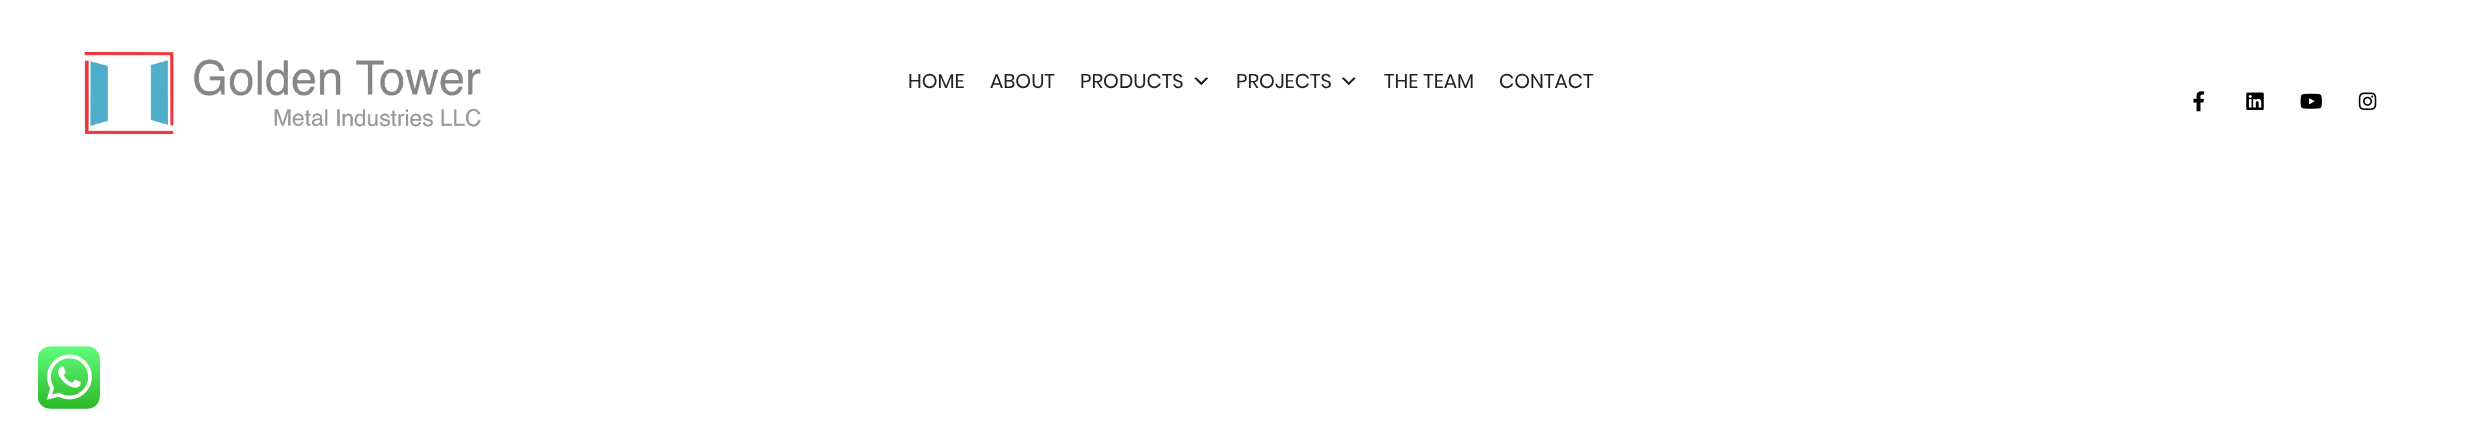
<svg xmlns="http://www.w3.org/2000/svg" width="2474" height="423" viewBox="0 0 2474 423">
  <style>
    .t1 { font: 20px Poppins; fill: #222; }
  </style>
  <rect width="100%" height="100%" fill="#fff"/>
  <image x="84" y="52" width="397" height="82" href="images/1.png"/>
  <text x="908" y="88" class="t1">HOME</text>
  <text x="990" y="88" class="t1">ABOUT</text>
  <text x="1080" y="88" class="t1">PRODUCTS</text>
  <image x="1194" y="77" width="15" height="9" href="images/2.png"/>
  <text x="1236" y="88" class="t1">PROJECTS</text>
  <image x="1341" y="77" width="15" height="9" href="images/3.png"/>
  <text x="1384" y="88" class="t1">THE TEAM</text>
  <text x="1499" y="88" class="t1">CONTACT</text>
  <image x="2193" y="91" width="12" height="21" href="images/4.png"/>
  <image x="2246" y="92" width="18" height="18" href="images/5.png"/>
  <image x="2300" y="93" width="22" height="16" href="images/6.png"/>
  <image x="2358" y="92" width="19" height="18" href="images/7.png"/>
  <image x="38" y="346" width="62" height="63" href="images/8.png"/>
</svg>
